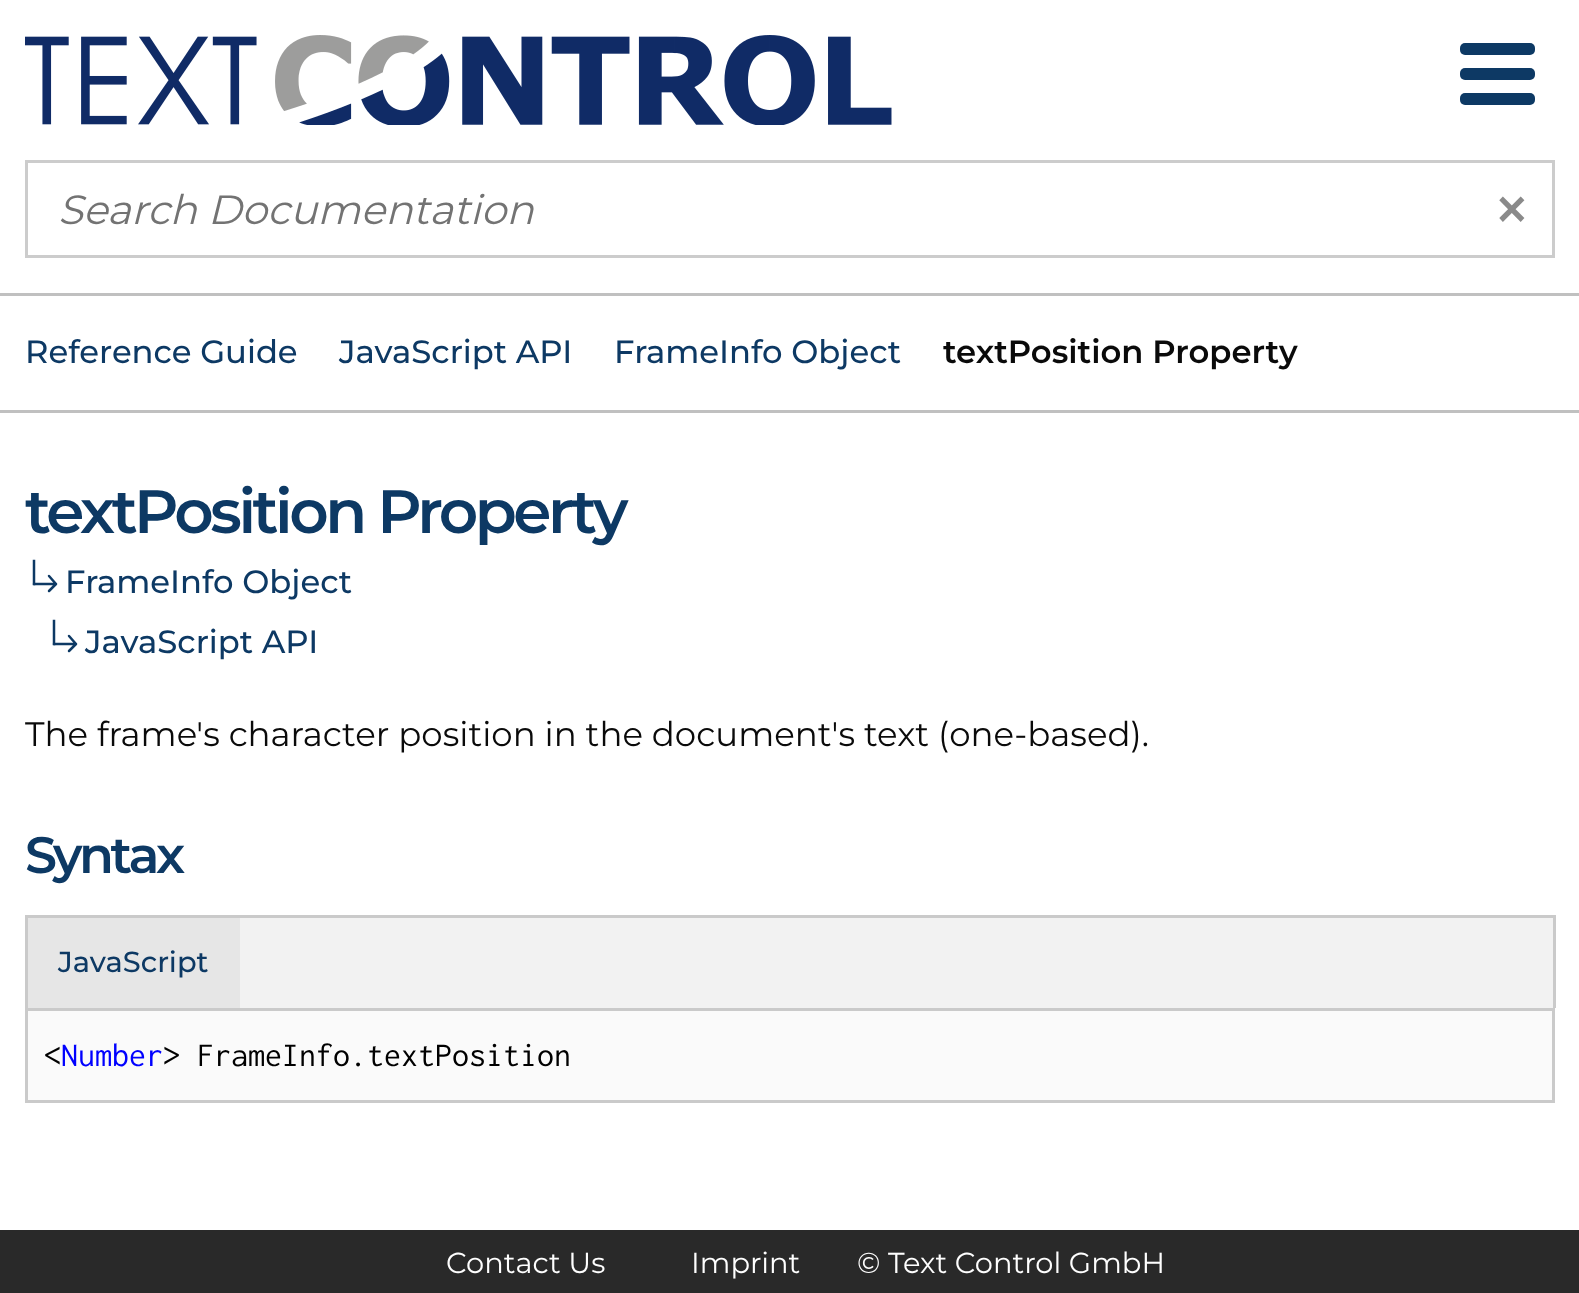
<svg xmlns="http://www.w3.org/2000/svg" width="1579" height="1293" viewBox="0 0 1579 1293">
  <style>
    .t1 { font: italic 100 40.75px Montserrat; fill: #737373; }
    .t2 { font: 100 68px Montserrat; fill: #8a8a8a; }
    .t3 { font: 100 32.25px Montserrat; fill: #0d3964; }
    .t4 { font: 100 32.25px 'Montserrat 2'; fill: #0a0a0a; }
    .t5 { font: 100 61.25px 'Montserrat 2'; letter-spacing: -3.5px; fill: #0d3964; }
    .t6 { font: 100 34px 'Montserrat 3'; fill: #0a0a0a; }
    .t7 { font: 100 51px 'Montserrat 2'; letter-spacing: -3.5px; fill: #0d3964; }
    .t8 { font: 100 28.9px Montserrat; fill: #0d3964; }
    .t9 { font: 34px Inconsolata; fill: #000; }
    .t10 { font: 34px Inconsolata; fill: #00f; }
    .t11 { font: 100 28.9px 'Montserrat 3'; fill: #fefefe; }
  </style>
  <rect width="100%" height="100%" fill="#fff"/>
  <image x="25" y="35" width="867" height="90" href="images/1.png"/>
  <rect x="1460" y="43" width="75" height="12" rx="5" fill="#0d3964"/>
  <rect x="1460" y="68" width="75" height="12" rx="5" fill="#0d3964"/>
  <rect x="1460" y="93" width="75" height="12" rx="5" fill="#0d3964"/>
  <rect x="26.5" y="161.5" width="1527" height="95" fill="none" stroke="#ccc" stroke-width="3"/>
  <text x="58" y="224" class="t1">Search Documentation</text>
  <text x="1492" y="233" class="t2">×</text>
  <rect x="0" y="293" width="1579" height="3" fill="#c0c0c0"/>
  <rect x="0" y="410" width="1579" height="3" fill="#c0c0c0"/>
  <text x="25" y="363" class="t3">Reference Guide</text>
  <text x="339" y="363" class="t3">JavaScript API</text>
  <text x="614" y="363" class="t3">FrameInfo Object</text>
  <text x="943" y="363" class="t4">textPosition Property</text>
  <text x="25" y="533" class="t5">textPosition Property</text>
  <path d="M34 561V584" fill="none" stroke="#0d3964" stroke-width="2.5" stroke-linecap="square"/>
  <path d="M34 584H54M49 576L56 584M49 591L56 584" fill="none" stroke="#0d3964" stroke-width="2.5" stroke-linecap="round"/>
  <text x="65" y="593" class="t3">FrameInfo Object</text>
  <path d="M54 621V644" fill="none" stroke="#0d3964" stroke-width="2.5" stroke-linecap="square"/>
  <path d="M54 644H74M69 636L76 644M69 651L76 644" fill="none" stroke="#0d3964" stroke-width="2.5" stroke-linecap="round"/>
  <text x="85" y="653" class="t3">JavaScript API</text>
  <text x="25" y="746" class="t6">The frame's character position in the document's text (one-based).</text>
  <text x="25" y="873" class="t7">Syntax</text>
  <rect x="240" y="918" width="1313" height="90" fill="#f2f2f2"/>
  <rect x="25" y="915" width="1530" height="3" fill="#cacaca"/>
  <rect x="1553" y="915" width="3" height="93" fill="#cacaca"/>
  <rect x="25" y="915" width="3" height="93" fill="#cacaca"/>
  <rect x="28" y="918" width="212" height="90" fill="#e6e6e6"/>
  <text x="58" y="972" class="t8">JavaScript</text>
  <rect x="26.5" y="1009.5" width="1527" height="92" fill="#fafafa" stroke="#cacaca" stroke-width="3"/>
  <text x="44" y="1066" class="t9">&lt;</text>
  <text x="61" y="1066" class="t10">Number</text>
  <text x="163" y="1066" class="t9">&gt; FrameInfo.textPosition</text>
  <rect x="0" y="1230" width="1579" height="63" fill="#292929"/>
  <text x="446" y="1273" class="t11">Contact Us</text>
  <text x="691" y="1273" class="t11">Imprint</text>
  <text x="857" y="1273" class="t11">© Text Control GmbH</text>
</svg>
